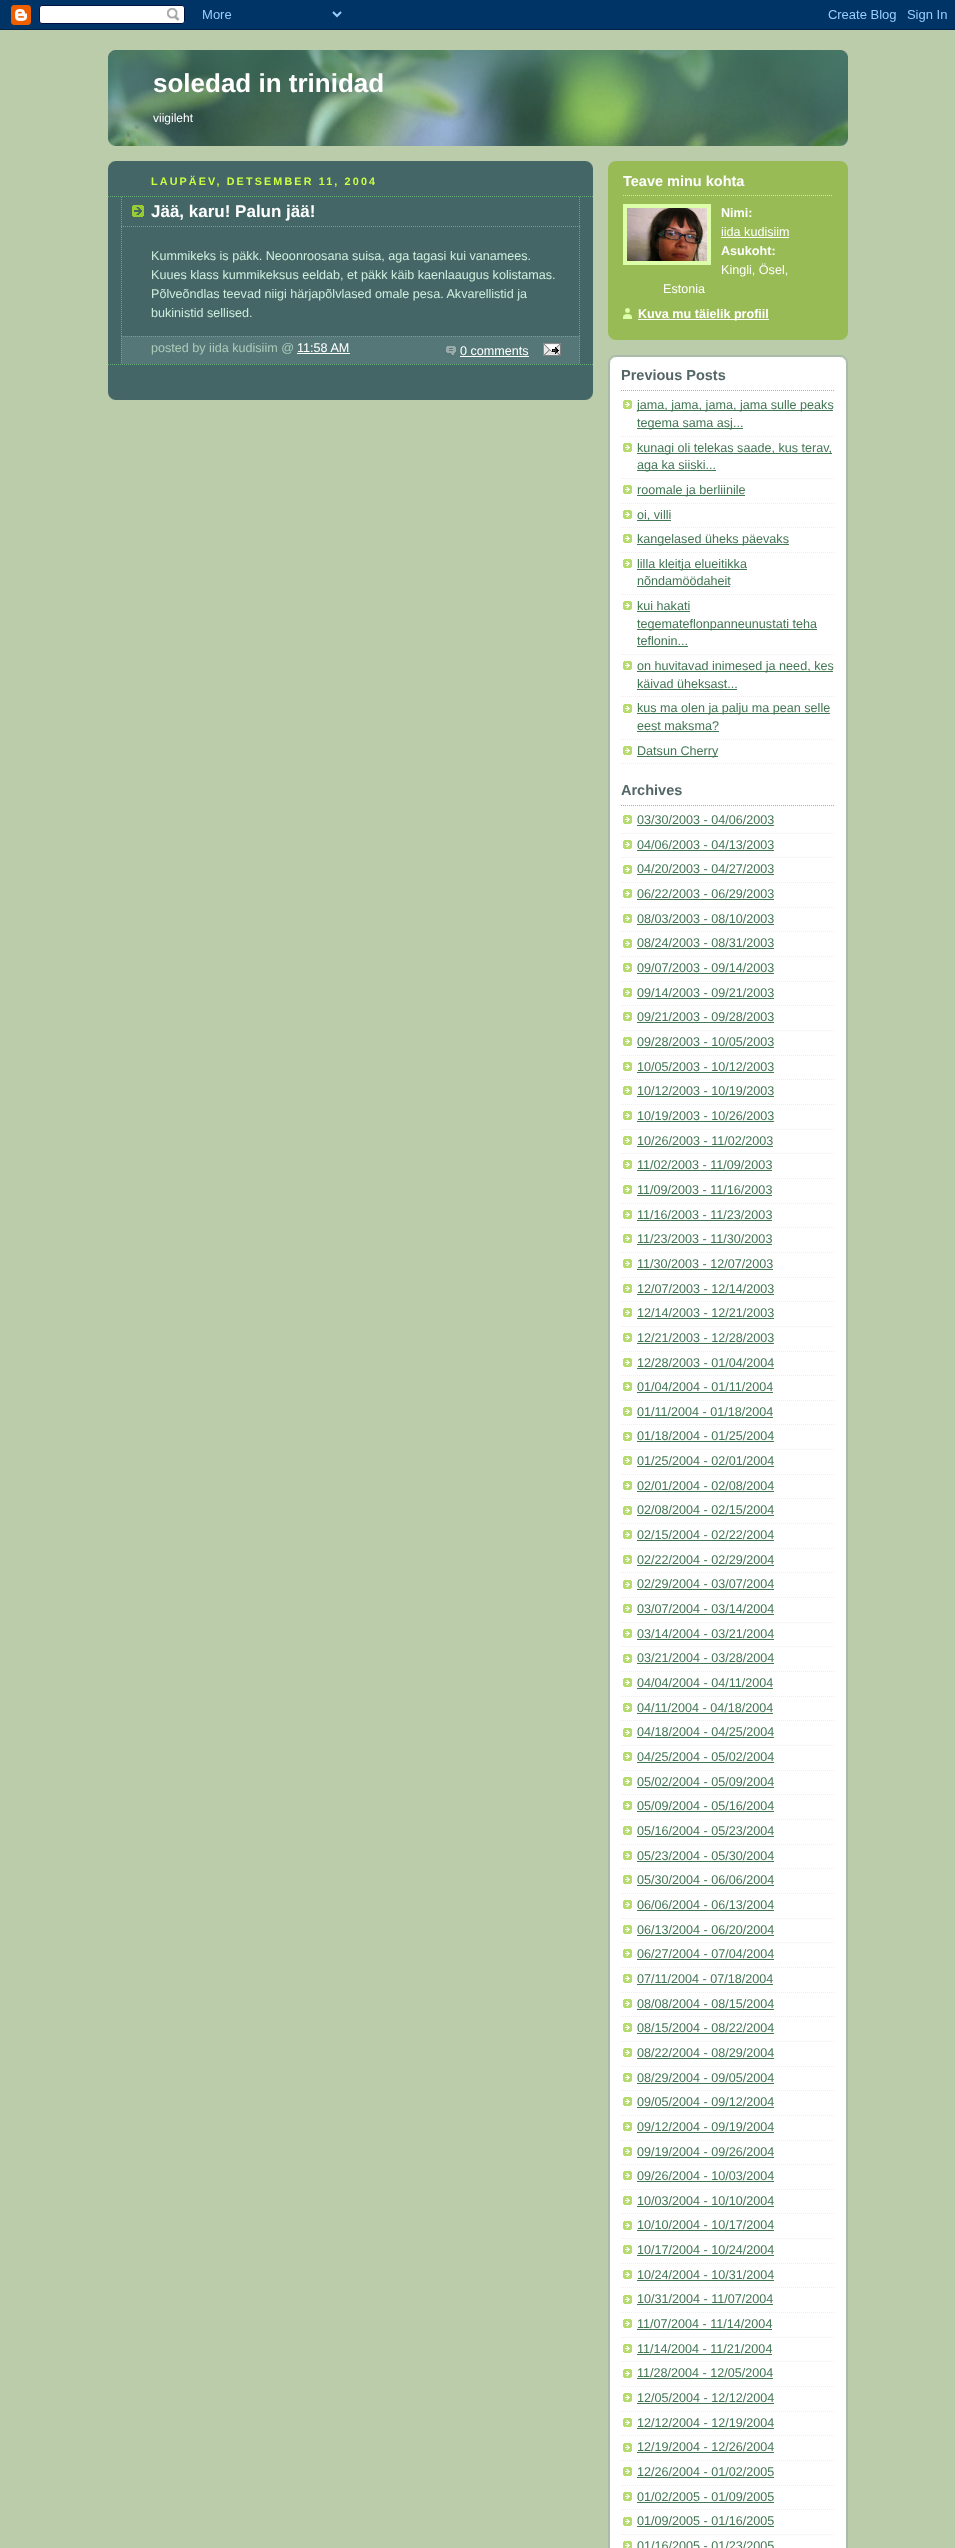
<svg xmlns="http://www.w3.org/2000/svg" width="955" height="2548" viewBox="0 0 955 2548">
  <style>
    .t1 { font: bold 26px Liberation Sans; fill: #fff; }
    .t2 { font: 12px Liberation Sans; fill: #fff; }
    .t3 { font: bold 10.75px Liberation Sans; letter-spacing: 2.15px; fill: #cf4; }
    .t4 { font: bold 17px Liberation Sans; fill: #fff; }
    .t5 { font: 12.6px Liberation Sans; fill: #ced; }
    .t6 { font: 12.6px Liberation Sans; fill: #acb; }
    .t7 { font: 12.6px Liberation Sans; fill: #fff; }
    .t8 { font: bold 14.5px Liberation Sans; fill: #fff; }
    .t9 { font: bold 12.6px Liberation Sans; fill: #fff; }
    .t10 { font: bold 14.5px Liberation Sans; fill: #566; }
    .t11 { font: 12.6px Liberation Sans; fill: #475; }
  </style>
  <rect width="100%" height="100%" fill="#bca"/>
  <image x="0" y="0" width="955" height="30" href="images/1.png"/>
  <image x="108" y="50" width="740" height="96" href="images/2.png"/>
  <image x="108" y="50" width="740" height="8" href="images/3.png"/>
  <text x="153" y="92" class="t1">soledad in trinidad</text>
  <text x="153" y="122" class="t2">viigileht</text>
  <rect x="108" y="161" width="485" height="239" fill="#466"/>
  <image x="108" y="392" width="485" height="8" href="images/4.png"/>
  <image x="108" y="161" width="485" height="8" href="images/5.png"/>
  <text x="151" y="185" class="t3">LAUPÄEV, DETSEMBER 11, 2004</text>
  <path d="M108 196.5H593" fill="none" stroke="#6a7" stroke-dasharray="1 1"/>
  <path d="M108 364.5H593" fill="none" stroke="#6a7" stroke-dasharray="1 1"/>
  <image x="132" y="205" width="12" height="12" href="images/6.png"/>
  <path d="M579.5 197V227" fill="none" stroke="#6a7" stroke-dasharray="1 1"/>
  <path d="M121 226.5H580" fill="none" stroke="#6a7" stroke-dasharray="1 1"/>
  <path d="M121.5 197V227" fill="none" stroke="#6a7" stroke-dasharray="1 1"/>
  <text x="151" y="217" class="t4">Jää, karu! Palun jää!</text>
  <path d="M579.5 227V336" fill="none" stroke="#6a7" stroke-dasharray="1 1"/>
  <path d="M121.5 227V336" fill="none" stroke="#6a7" stroke-dasharray="1 1"/>
  <text x="151" y="260" class="t5">Kummikeks is päkk. Neoonroosana suisa, aga tagasi kui vanamees.</text>
  <text x="151" y="279" class="t5">Kuues klass kummikeksus eeldab, et päkk käib kaenlaaugus kolistamas.</text>
  <text x="151" y="298" class="t5">Põlveõndlas teevad niigi härjapõlvlased omale pesa. Akvarellistid ja</text>
  <text x="151" y="317" class="t5">bukinistid sellised.</text>
  <rect x="121" y="336" width="459" height="28" fill="#577"/>
  <path d="M121 336.5H580" fill="none" stroke="#6a7" stroke-dasharray="1 1"/>
  <path d="M579.5 336V364" fill="none" stroke="#6a7" stroke-dasharray="1 1"/>
  <path d="M121.5 336V364" fill="none" stroke="#6a7" stroke-dasharray="1 1"/>
  <text x="151" y="352" class="t6">posted by iida kudisiim @</text>
  <text x="297" y="352" class="t7">11:58 AM</text>
  <rect x="297" y="353" width="53" height="1" fill="#fff"/>
  <image x="446" y="346" width="10" height="9" href="images/7.png"/>
  <text x="460" y="355" class="t7">0 comments</text>
  <rect x="460" y="356" width="69" height="1" fill="#fff"/>
  <image x="543" y="343" width="18" height="13" href="images/8.png"/>
  <rect x="608" y="161" width="240" height="179" fill="#9b5"/>
  <image x="608" y="332" width="240" height="8" href="images/9.png"/>
  <image x="608" y="161" width="240" height="8" href="images/10.png"/>
  <text x="623" y="186" class="t8">Teave minu kohta</text>
  <path d="M623 195.5H833" fill="none" stroke="#ce9" stroke-dasharray="1 1"/>
  <rect x="625" y="206" width="84" height="57" fill="none" stroke="#dfa" stroke-width="4"/>
  <image x="627" y="208" width="80" height="53" href="images/11.png"/>
  <text x="721" y="217" class="t9">Nimi:</text>
  <text x="721" y="236" class="t7">iida kudisiim</text>
  <rect x="721" y="237" width="68" height="1" fill="#fff"/>
  <text x="721" y="255" class="t9">Asukoht:</text>
  <text x="721" y="274" class="t7">Kingli, Ösel,</text>
  <text x="663" y="293" class="t7">Estonia</text>
  <image x="623" y="308" width="9" height="11" href="images/12.png"/>
  <rect x="638" y="319" width="131" height="1" fill="#fff"/>
  <text x="638" y="318" class="t9">Kuva mu täielik profiil</text>
  <rect x="610" y="357" width="236" height="2191" fill="#fff"/>
  <image x="608" y="355" width="240" height="30" href="images/13.png"/>
  <image x="608" y="385" width="240" height="2163" href="images/14.png"/>
  <path d="M621 390.5H835" fill="none" stroke="#9b9" stroke-dasharray="1 1"/>
  <text x="621" y="380" class="t10">Previous Posts</text>
  <image x="623" y="400" width="9" height="9" href="images/15.png"/>
  <path d="M621 436.5H835" fill="none" stroke="#eee" stroke-dasharray="1 1"/>
  <rect x="637" y="410" width="196" height="1" fill="#475"/>
  <text x="637" y="409" class="t11">jama, jama, jama, jama sulle peaks</text>
  <rect x="637" y="428" width="106" height="1" fill="#475"/>
  <text x="637" y="427" class="t11">tegema sama asj...</text>
  <image x="623" y="443" width="9" height="9" href="images/15.png"/>
  <path d="M621 478.5H835" fill="none" stroke="#eee" stroke-dasharray="1 1"/>
  <rect x="637" y="453" width="195" height="1" fill="#475"/>
  <text x="637" y="452" class="t11">kunagi oli telekas saade, kus terav,</text>
  <rect x="637" y="470" width="79" height="1" fill="#475"/>
  <text x="637" y="469" class="t11">aga ka siiski...</text>
  <image x="623" y="485" width="9" height="9" href="images/15.png"/>
  <path d="M621 503.5H835" fill="none" stroke="#eee" stroke-dasharray="1 1"/>
  <rect x="637" y="495" width="108" height="1" fill="#475"/>
  <text x="637" y="494" class="t11">roomale ja berliinile</text>
  <image x="623" y="510" width="9" height="9" href="images/15.png"/>
  <path d="M621 527.5H835" fill="none" stroke="#eee" stroke-dasharray="1 1"/>
  <rect x="637" y="520" width="34" height="1" fill="#475"/>
  <text x="637" y="519" class="t11">oi, villi</text>
  <image x="623" y="534" width="9" height="9" href="images/15.png"/>
  <path d="M621 552.5H835" fill="none" stroke="#eee" stroke-dasharray="1 1"/>
  <rect x="637" y="544" width="152" height="1" fill="#475"/>
  <text x="637" y="543" class="t11">kangelased üheks päevaks</text>
  <image x="623" y="559" width="9" height="9" href="images/15.png"/>
  <path d="M621 594.5H835" fill="none" stroke="#eee" stroke-dasharray="1 1"/>
  <rect x="637" y="569" width="110" height="1" fill="#475"/>
  <text x="637" y="568" class="t11">lilla kleitja elueitikka</text>
  <text x="637" y="585" class="t11">nõndamöödaheit</text>
  <rect x="637" y="586" width="93" height="1" fill="#475"/>
  <image x="623" y="601" width="9" height="9" href="images/15.png"/>
  <path d="M621 654.5H835" fill="none" stroke="#eee" stroke-dasharray="1 1"/>
  <text x="637" y="610" class="t11">kui hakati</text>
  <rect x="637" y="611" width="53" height="1" fill="#475"/>
  <rect x="637" y="629" width="180" height="1" fill="#475"/>
  <text x="637" y="628" class="t11">tegemateflonpanneunustati teha</text>
  <text x="637" y="645" class="t11">teflonin...</text>
  <rect x="637" y="646" width="51" height="1" fill="#475"/>
  <image x="623" y="661" width="9" height="9" href="images/15.png"/>
  <path d="M621 696.5H835" fill="none" stroke="#eee" stroke-dasharray="1 1"/>
  <rect x="637" y="671" width="196" height="1" fill="#475"/>
  <text x="637" y="670" class="t11">on huvitavad inimesed ja need, kes</text>
  <text x="637" y="688" class="t11">käivad üheksast...</text>
  <rect x="637" y="689" width="100" height="1" fill="#475"/>
  <image x="623" y="704" width="9" height="9" href="images/15.png"/>
  <path d="M621 739.5H835" fill="none" stroke="#eee" stroke-dasharray="1 1"/>
  <rect x="637" y="713" width="193" height="1" fill="#475"/>
  <text x="637" y="712" class="t11">kus ma olen ja palju ma pean selle</text>
  <text x="637" y="730" class="t11">eest maksma?</text>
  <rect x="637" y="731" width="82" height="1" fill="#475"/>
  <image x="623" y="746" width="9" height="9" href="images/15.png"/>
  <path d="M621 763.5H835" fill="none" stroke="#eee" stroke-dasharray="1 1"/>
  <rect x="637" y="756" width="81" height="1" fill="#475"/>
  <text x="637" y="755" class="t11">Datsun Cherry</text>
  <path d="M621 805.5H835" fill="none" stroke="#9b9" stroke-dasharray="1 1"/>
  <text x="621" y="795" class="t10">Archives</text>
  <image x="623" y="815" width="9" height="9" href="images/15.png"/>
  <path d="M621 833.5H835" fill="none" stroke="#eee" stroke-dasharray="1 1"/>
  <text x="637" y="824" class="t11">03/30/2003 - 04/06/2003</text>
  <rect x="637" y="825" width="137" height="1" fill="#475"/>
  <image x="623" y="840" width="9" height="9" href="images/15.png"/>
  <path d="M621 857.5H835" fill="none" stroke="#eee" stroke-dasharray="1 1"/>
  <text x="637" y="849" class="t11">04/06/2003 - 04/13/2003</text>
  <rect x="637" y="850" width="137" height="1" fill="#475"/>
  <image x="623" y="865" width="9" height="9" href="images/15.png"/>
  <path d="M621 882.5H835" fill="none" stroke="#eee" stroke-dasharray="1 1"/>
  <text x="637" y="873" class="t11">04/20/2003 - 04/27/2003</text>
  <rect x="637" y="874" width="137" height="1" fill="#475"/>
  <image x="623" y="889" width="9" height="9" href="images/15.png"/>
  <path d="M621 907.5H835" fill="none" stroke="#eee" stroke-dasharray="1 1"/>
  <text x="637" y="898" class="t11">06/22/2003 - 06/29/2003</text>
  <rect x="637" y="899" width="137" height="1" fill="#475"/>
  <image x="623" y="914" width="9" height="9" href="images/15.png"/>
  <path d="M621 931.5H835" fill="none" stroke="#eee" stroke-dasharray="1 1"/>
  <text x="637" y="923" class="t11">08/03/2003 - 08/10/2003</text>
  <rect x="637" y="924" width="137" height="1" fill="#475"/>
  <image x="623" y="939" width="9" height="9" href="images/15.png"/>
  <path d="M621 956.5H835" fill="none" stroke="#eee" stroke-dasharray="1 1"/>
  <text x="637" y="947" class="t11">08/24/2003 - 08/31/2003</text>
  <rect x="637" y="948" width="137" height="1" fill="#475"/>
  <image x="623" y="963" width="9" height="9" href="images/15.png"/>
  <path d="M621 981.5H835" fill="none" stroke="#eee" stroke-dasharray="1 1"/>
  <text x="637" y="972" class="t11">09/07/2003 - 09/14/2003</text>
  <rect x="637" y="973" width="137" height="1" fill="#475"/>
  <image x="623" y="988" width="9" height="9" href="images/15.png"/>
  <path d="M621 1005.5H835" fill="none" stroke="#eee" stroke-dasharray="1 1"/>
  <text x="637" y="997" class="t11">09/14/2003 - 09/21/2003</text>
  <rect x="637" y="998" width="137" height="1" fill="#475"/>
  <image x="623" y="1012" width="9" height="9" href="images/15.png"/>
  <path d="M621 1030.5H835" fill="none" stroke="#eee" stroke-dasharray="1 1"/>
  <text x="637" y="1021" class="t11">09/21/2003 - 09/28/2003</text>
  <rect x="637" y="1022" width="137" height="1" fill="#475"/>
  <image x="623" y="1037" width="9" height="9" href="images/15.png"/>
  <path d="M621 1055.5H835" fill="none" stroke="#eee" stroke-dasharray="1 1"/>
  <text x="637" y="1046" class="t11">09/28/2003 - 10/05/2003</text>
  <rect x="637" y="1047" width="137" height="1" fill="#475"/>
  <image x="623" y="1062" width="9" height="9" href="images/15.png"/>
  <path d="M621 1079.5H835" fill="none" stroke="#eee" stroke-dasharray="1 1"/>
  <text x="637" y="1071" class="t11">10/05/2003 - 10/12/2003</text>
  <rect x="637" y="1072" width="137" height="1" fill="#475"/>
  <image x="623" y="1086" width="9" height="9" href="images/15.png"/>
  <path d="M621 1104.5H835" fill="none" stroke="#eee" stroke-dasharray="1 1"/>
  <text x="637" y="1095" class="t11">10/12/2003 - 10/19/2003</text>
  <rect x="637" y="1096" width="137" height="1" fill="#475"/>
  <image x="623" y="1111" width="9" height="9" href="images/15.png"/>
  <path d="M621 1129.5H835" fill="none" stroke="#eee" stroke-dasharray="1 1"/>
  <text x="637" y="1120" class="t11">10/19/2003 - 10/26/2003</text>
  <rect x="637" y="1121" width="137" height="1" fill="#475"/>
  <image x="623" y="1136" width="9" height="9" href="images/15.png"/>
  <path d="M621 1153.5H835" fill="none" stroke="#eee" stroke-dasharray="1 1"/>
  <text x="637" y="1145" class="t11">10/26/2003 - 11/02/2003</text>
  <rect x="637" y="1146" width="136" height="1" fill="#475"/>
  <image x="623" y="1160" width="9" height="9" href="images/15.png"/>
  <path d="M621 1178.5H835" fill="none" stroke="#eee" stroke-dasharray="1 1"/>
  <text x="637" y="1169" class="t11">11/02/2003 - 11/09/2003</text>
  <rect x="637" y="1170" width="135" height="1" fill="#475"/>
  <image x="623" y="1185" width="9" height="9" href="images/15.png"/>
  <path d="M621 1203.5H835" fill="none" stroke="#eee" stroke-dasharray="1 1"/>
  <text x="637" y="1194" class="t11">11/09/2003 - 11/16/2003</text>
  <rect x="637" y="1195" width="135" height="1" fill="#475"/>
  <image x="623" y="1210" width="9" height="9" href="images/15.png"/>
  <path d="M621 1227.5H835" fill="none" stroke="#eee" stroke-dasharray="1 1"/>
  <text x="637" y="1219" class="t11">11/16/2003 - 11/23/2003</text>
  <rect x="637" y="1220" width="135" height="1" fill="#475"/>
  <image x="623" y="1234" width="9" height="9" href="images/15.png"/>
  <path d="M621 1252.5H835" fill="none" stroke="#eee" stroke-dasharray="1 1"/>
  <text x="637" y="1243" class="t11">11/23/2003 - 11/30/2003</text>
  <rect x="637" y="1244" width="135" height="1" fill="#475"/>
  <image x="623" y="1259" width="9" height="9" href="images/15.png"/>
  <path d="M621 1277.5H835" fill="none" stroke="#eee" stroke-dasharray="1 1"/>
  <text x="637" y="1268" class="t11">11/30/2003 - 12/07/2003</text>
  <rect x="637" y="1269" width="136" height="1" fill="#475"/>
  <image x="623" y="1284" width="9" height="9" href="images/15.png"/>
  <path d="M621 1301.5H835" fill="none" stroke="#eee" stroke-dasharray="1 1"/>
  <text x="637" y="1293" class="t11">12/07/2003 - 12/14/2003</text>
  <rect x="637" y="1294" width="137" height="1" fill="#475"/>
  <image x="623" y="1308" width="9" height="9" href="images/15.png"/>
  <path d="M621 1326.5H835" fill="none" stroke="#eee" stroke-dasharray="1 1"/>
  <text x="637" y="1317" class="t11">12/14/2003 - 12/21/2003</text>
  <rect x="637" y="1318" width="137" height="1" fill="#475"/>
  <image x="623" y="1333" width="9" height="9" href="images/15.png"/>
  <path d="M621 1351.5H835" fill="none" stroke="#eee" stroke-dasharray="1 1"/>
  <text x="637" y="1342" class="t11">12/21/2003 - 12/28/2003</text>
  <rect x="637" y="1343" width="137" height="1" fill="#475"/>
  <image x="623" y="1358" width="9" height="9" href="images/15.png"/>
  <path d="M621 1375.5H835" fill="none" stroke="#eee" stroke-dasharray="1 1"/>
  <text x="637" y="1367" class="t11">12/28/2003 - 01/04/2004</text>
  <rect x="637" y="1368" width="137" height="1" fill="#475"/>
  <image x="623" y="1382" width="9" height="9" href="images/15.png"/>
  <path d="M621 1400.5H835" fill="none" stroke="#eee" stroke-dasharray="1 1"/>
  <text x="637" y="1391" class="t11">01/04/2004 - 01/11/2004</text>
  <rect x="637" y="1392" width="136" height="1" fill="#475"/>
  <image x="623" y="1407" width="9" height="9" href="images/15.png"/>
  <path d="M621 1424.5H835" fill="none" stroke="#eee" stroke-dasharray="1 1"/>
  <text x="637" y="1416" class="t11">01/11/2004 - 01/18/2004</text>
  <rect x="637" y="1417" width="136" height="1" fill="#475"/>
  <image x="623" y="1432" width="9" height="9" href="images/15.png"/>
  <path d="M621 1449.5H835" fill="none" stroke="#eee" stroke-dasharray="1 1"/>
  <text x="637" y="1440" class="t11">01/18/2004 - 01/25/2004</text>
  <rect x="637" y="1441" width="137" height="1" fill="#475"/>
  <image x="623" y="1456" width="9" height="9" href="images/15.png"/>
  <path d="M621 1474.5H835" fill="none" stroke="#eee" stroke-dasharray="1 1"/>
  <text x="637" y="1465" class="t11">01/25/2004 - 02/01/2004</text>
  <rect x="637" y="1466" width="137" height="1" fill="#475"/>
  <image x="623" y="1481" width="9" height="9" href="images/15.png"/>
  <path d="M621 1498.5H835" fill="none" stroke="#eee" stroke-dasharray="1 1"/>
  <text x="637" y="1490" class="t11">02/01/2004 - 02/08/2004</text>
  <rect x="637" y="1491" width="137" height="1" fill="#475"/>
  <image x="623" y="1506" width="9" height="9" href="images/15.png"/>
  <path d="M621 1523.5H835" fill="none" stroke="#eee" stroke-dasharray="1 1"/>
  <text x="637" y="1514" class="t11">02/08/2004 - 02/15/2004</text>
  <rect x="637" y="1515" width="137" height="1" fill="#475"/>
  <image x="623" y="1530" width="9" height="9" href="images/15.png"/>
  <path d="M621 1548.5H835" fill="none" stroke="#eee" stroke-dasharray="1 1"/>
  <text x="637" y="1539" class="t11">02/15/2004 - 02/22/2004</text>
  <rect x="637" y="1540" width="137" height="1" fill="#475"/>
  <image x="623" y="1555" width="9" height="9" href="images/15.png"/>
  <path d="M621 1572.5H835" fill="none" stroke="#eee" stroke-dasharray="1 1"/>
  <text x="637" y="1564" class="t11">02/22/2004 - 02/29/2004</text>
  <rect x="637" y="1565" width="137" height="1" fill="#475"/>
  <image x="623" y="1580" width="9" height="9" href="images/15.png"/>
  <path d="M621 1597.5H835" fill="none" stroke="#eee" stroke-dasharray="1 1"/>
  <text x="637" y="1588" class="t11">02/29/2004 - 03/07/2004</text>
  <rect x="637" y="1589" width="137" height="1" fill="#475"/>
  <image x="623" y="1604" width="9" height="9" href="images/15.png"/>
  <path d="M621 1622.5H835" fill="none" stroke="#eee" stroke-dasharray="1 1"/>
  <text x="637" y="1613" class="t11">03/07/2004 - 03/14/2004</text>
  <rect x="637" y="1614" width="137" height="1" fill="#475"/>
  <image x="623" y="1629" width="9" height="9" href="images/15.png"/>
  <path d="M621 1646.5H835" fill="none" stroke="#eee" stroke-dasharray="1 1"/>
  <text x="637" y="1638" class="t11">03/14/2004 - 03/21/2004</text>
  <rect x="637" y="1639" width="137" height="1" fill="#475"/>
  <image x="623" y="1654" width="9" height="9" href="images/15.png"/>
  <path d="M621 1671.5H835" fill="none" stroke="#eee" stroke-dasharray="1 1"/>
  <text x="637" y="1662" class="t11">03/21/2004 - 03/28/2004</text>
  <rect x="637" y="1663" width="137" height="1" fill="#475"/>
  <image x="623" y="1678" width="9" height="9" href="images/15.png"/>
  <path d="M621 1696.5H835" fill="none" stroke="#eee" stroke-dasharray="1 1"/>
  <text x="637" y="1687" class="t11">04/04/2004 - 04/11/2004</text>
  <rect x="637" y="1688" width="136" height="1" fill="#475"/>
  <image x="623" y="1703" width="9" height="9" href="images/15.png"/>
  <path d="M621 1720.5H835" fill="none" stroke="#eee" stroke-dasharray="1 1"/>
  <text x="637" y="1712" class="t11">04/11/2004 - 04/18/2004</text>
  <rect x="637" y="1713" width="136" height="1" fill="#475"/>
  <image x="623" y="1728" width="9" height="9" href="images/15.png"/>
  <path d="M621 1745.5H835" fill="none" stroke="#eee" stroke-dasharray="1 1"/>
  <text x="637" y="1736" class="t11">04/18/2004 - 04/25/2004</text>
  <rect x="637" y="1737" width="137" height="1" fill="#475"/>
  <image x="623" y="1752" width="9" height="9" href="images/15.png"/>
  <path d="M621 1770.5H835" fill="none" stroke="#eee" stroke-dasharray="1 1"/>
  <text x="637" y="1761" class="t11">04/25/2004 - 05/02/2004</text>
  <rect x="637" y="1762" width="137" height="1" fill="#475"/>
  <image x="623" y="1777" width="9" height="9" href="images/15.png"/>
  <path d="M621 1794.5H835" fill="none" stroke="#eee" stroke-dasharray="1 1"/>
  <text x="637" y="1786" class="t11">05/02/2004 - 05/09/2004</text>
  <rect x="637" y="1787" width="137" height="1" fill="#475"/>
  <image x="623" y="1801" width="9" height="9" href="images/15.png"/>
  <path d="M621 1819.5H835" fill="none" stroke="#eee" stroke-dasharray="1 1"/>
  <text x="637" y="1810" class="t11">05/09/2004 - 05/16/2004</text>
  <rect x="637" y="1811" width="137" height="1" fill="#475"/>
  <image x="623" y="1826" width="9" height="9" href="images/15.png"/>
  <path d="M621 1844.5H835" fill="none" stroke="#eee" stroke-dasharray="1 1"/>
  <text x="637" y="1835" class="t11">05/16/2004 - 05/23/2004</text>
  <rect x="637" y="1836" width="137" height="1" fill="#475"/>
  <image x="623" y="1851" width="9" height="9" href="images/15.png"/>
  <path d="M621 1868.5H835" fill="none" stroke="#eee" stroke-dasharray="1 1"/>
  <text x="637" y="1860" class="t11">05/23/2004 - 05/30/2004</text>
  <rect x="637" y="1861" width="137" height="1" fill="#475"/>
  <image x="623" y="1875" width="9" height="9" href="images/15.png"/>
  <path d="M621 1893.5H835" fill="none" stroke="#eee" stroke-dasharray="1 1"/>
  <text x="637" y="1884" class="t11">05/30/2004 - 06/06/2004</text>
  <rect x="637" y="1885" width="137" height="1" fill="#475"/>
  <image x="623" y="1900" width="9" height="9" href="images/15.png"/>
  <path d="M621 1918.5H835" fill="none" stroke="#eee" stroke-dasharray="1 1"/>
  <text x="637" y="1909" class="t11">06/06/2004 - 06/13/2004</text>
  <rect x="637" y="1910" width="137" height="1" fill="#475"/>
  <image x="623" y="1925" width="9" height="9" href="images/15.png"/>
  <path d="M621 1942.5H835" fill="none" stroke="#eee" stroke-dasharray="1 1"/>
  <text x="637" y="1934" class="t11">06/13/2004 - 06/20/2004</text>
  <rect x="637" y="1935" width="137" height="1" fill="#475"/>
  <image x="623" y="1949" width="9" height="9" href="images/15.png"/>
  <path d="M621 1967.5H835" fill="none" stroke="#eee" stroke-dasharray="1 1"/>
  <text x="637" y="1958" class="t11">06/27/2004 - 07/04/2004</text>
  <rect x="637" y="1959" width="137" height="1" fill="#475"/>
  <image x="623" y="1974" width="9" height="9" href="images/15.png"/>
  <path d="M621 1992.5H835" fill="none" stroke="#eee" stroke-dasharray="1 1"/>
  <text x="637" y="1983" class="t11">07/11/2004 - 07/18/2004</text>
  <rect x="637" y="1984" width="136" height="1" fill="#475"/>
  <image x="623" y="1999" width="9" height="9" href="images/15.png"/>
  <path d="M621 2016.5H835" fill="none" stroke="#eee" stroke-dasharray="1 1"/>
  <text x="637" y="2008" class="t11">08/08/2004 - 08/15/2004</text>
  <rect x="637" y="2009" width="137" height="1" fill="#475"/>
  <image x="623" y="2023" width="9" height="9" href="images/15.png"/>
  <path d="M621 2041.5H835" fill="none" stroke="#eee" stroke-dasharray="1 1"/>
  <text x="637" y="2032" class="t11">08/15/2004 - 08/22/2004</text>
  <rect x="637" y="2033" width="137" height="1" fill="#475"/>
  <image x="623" y="2048" width="9" height="9" href="images/15.png"/>
  <path d="M621 2066.5H835" fill="none" stroke="#eee" stroke-dasharray="1 1"/>
  <text x="637" y="2057" class="t11">08/22/2004 - 08/29/2004</text>
  <rect x="637" y="2058" width="137" height="1" fill="#475"/>
  <image x="623" y="2073" width="9" height="9" href="images/15.png"/>
  <path d="M621 2090.5H835" fill="none" stroke="#eee" stroke-dasharray="1 1"/>
  <text x="637" y="2082" class="t11">08/29/2004 - 09/05/2004</text>
  <rect x="637" y="2083" width="137" height="1" fill="#475"/>
  <image x="623" y="2097" width="9" height="9" href="images/15.png"/>
  <path d="M621 2115.5H835" fill="none" stroke="#eee" stroke-dasharray="1 1"/>
  <text x="637" y="2106" class="t11">09/05/2004 - 09/12/2004</text>
  <rect x="637" y="2107" width="137" height="1" fill="#475"/>
  <image x="623" y="2122" width="9" height="9" href="images/15.png"/>
  <path d="M621 2140.5H835" fill="none" stroke="#eee" stroke-dasharray="1 1"/>
  <text x="637" y="2131" class="t11">09/12/2004 - 09/19/2004</text>
  <rect x="637" y="2132" width="137" height="1" fill="#475"/>
  <image x="623" y="2147" width="9" height="9" href="images/15.png"/>
  <path d="M621 2164.5H835" fill="none" stroke="#eee" stroke-dasharray="1 1"/>
  <text x="637" y="2156" class="t11">09/19/2004 - 09/26/2004</text>
  <rect x="637" y="2157" width="137" height="1" fill="#475"/>
  <image x="623" y="2171" width="9" height="9" href="images/15.png"/>
  <path d="M621 2189.5H835" fill="none" stroke="#eee" stroke-dasharray="1 1"/>
  <text x="637" y="2180" class="t11">09/26/2004 - 10/03/2004</text>
  <rect x="637" y="2181" width="137" height="1" fill="#475"/>
  <image x="623" y="2196" width="9" height="9" href="images/15.png"/>
  <path d="M621 2213.5H835" fill="none" stroke="#eee" stroke-dasharray="1 1"/>
  <text x="637" y="2205" class="t11">10/03/2004 - 10/10/2004</text>
  <rect x="637" y="2206" width="137" height="1" fill="#475"/>
  <image x="623" y="2221" width="9" height="9" href="images/15.png"/>
  <path d="M621 2238.5H835" fill="none" stroke="#eee" stroke-dasharray="1 1"/>
  <text x="637" y="2229" class="t11">10/10/2004 - 10/17/2004</text>
  <rect x="637" y="2230" width="137" height="1" fill="#475"/>
  <image x="623" y="2245" width="9" height="9" href="images/15.png"/>
  <path d="M621 2263.5H835" fill="none" stroke="#eee" stroke-dasharray="1 1"/>
  <text x="637" y="2254" class="t11">10/17/2004 - 10/24/2004</text>
  <rect x="637" y="2255" width="137" height="1" fill="#475"/>
  <image x="623" y="2270" width="9" height="9" href="images/15.png"/>
  <path d="M621 2287.5H835" fill="none" stroke="#eee" stroke-dasharray="1 1"/>
  <text x="637" y="2279" class="t11">10/24/2004 - 10/31/2004</text>
  <rect x="637" y="2280" width="137" height="1" fill="#475"/>
  <image x="623" y="2295" width="9" height="9" href="images/15.png"/>
  <path d="M621 2312.5H835" fill="none" stroke="#eee" stroke-dasharray="1 1"/>
  <text x="637" y="2303" class="t11">10/31/2004 - 11/07/2004</text>
  <rect x="637" y="2304" width="136" height="1" fill="#475"/>
  <image x="623" y="2319" width="9" height="9" href="images/15.png"/>
  <path d="M621 2337.5H835" fill="none" stroke="#eee" stroke-dasharray="1 1"/>
  <text x="637" y="2328" class="t11">11/07/2004 - 11/14/2004</text>
  <rect x="637" y="2329" width="135" height="1" fill="#475"/>
  <image x="623" y="2344" width="9" height="9" href="images/15.png"/>
  <path d="M621 2361.5H835" fill="none" stroke="#eee" stroke-dasharray="1 1"/>
  <text x="637" y="2353" class="t11">11/14/2004 - 11/21/2004</text>
  <rect x="637" y="2354" width="135" height="1" fill="#475"/>
  <image x="623" y="2369" width="9" height="9" href="images/15.png"/>
  <path d="M621 2386.5H835" fill="none" stroke="#eee" stroke-dasharray="1 1"/>
  <text x="637" y="2377" class="t11">11/28/2004 - 12/05/2004</text>
  <rect x="637" y="2378" width="136" height="1" fill="#475"/>
  <image x="623" y="2393" width="9" height="9" href="images/15.png"/>
  <path d="M621 2411.5H835" fill="none" stroke="#eee" stroke-dasharray="1 1"/>
  <text x="637" y="2402" class="t11">12/05/2004 - 12/12/2004</text>
  <rect x="637" y="2403" width="137" height="1" fill="#475"/>
  <image x="623" y="2418" width="9" height="9" href="images/15.png"/>
  <path d="M621 2435.5H835" fill="none" stroke="#eee" stroke-dasharray="1 1"/>
  <text x="637" y="2427" class="t11">12/12/2004 - 12/19/2004</text>
  <rect x="637" y="2428" width="137" height="1" fill="#475"/>
  <image x="623" y="2443" width="9" height="9" href="images/15.png"/>
  <path d="M621 2460.5H835" fill="none" stroke="#eee" stroke-dasharray="1 1"/>
  <text x="637" y="2451" class="t11">12/19/2004 - 12/26/2004</text>
  <rect x="637" y="2452" width="137" height="1" fill="#475"/>
  <image x="623" y="2467" width="9" height="9" href="images/15.png"/>
  <path d="M621 2485.5H835" fill="none" stroke="#eee" stroke-dasharray="1 1"/>
  <text x="637" y="2476" class="t11">12/26/2004 - 01/02/2005</text>
  <rect x="637" y="2477" width="137" height="1" fill="#475"/>
  <image x="623" y="2492" width="9" height="9" href="images/15.png"/>
  <path d="M621 2509.5H835" fill="none" stroke="#eee" stroke-dasharray="1 1"/>
  <text x="637" y="2501" class="t11">01/02/2005 - 01/09/2005</text>
  <rect x="637" y="2502" width="137" height="1" fill="#475"/>
  <image x="623" y="2517" width="9" height="9" href="images/15.png"/>
  <path d="M621 2534.5H835" fill="none" stroke="#eee" stroke-dasharray="1 1"/>
  <text x="637" y="2525" class="t11">01/09/2005 - 01/16/2005</text>
  <rect x="637" y="2526" width="137" height="1" fill="#475"/>
  <image x="623" y="2541" width="9" height="7" href="images/16.png"/>
  <text x="637" y="2550" class="t11">01/16/2005 - 01/23/2005</text>
</svg>
